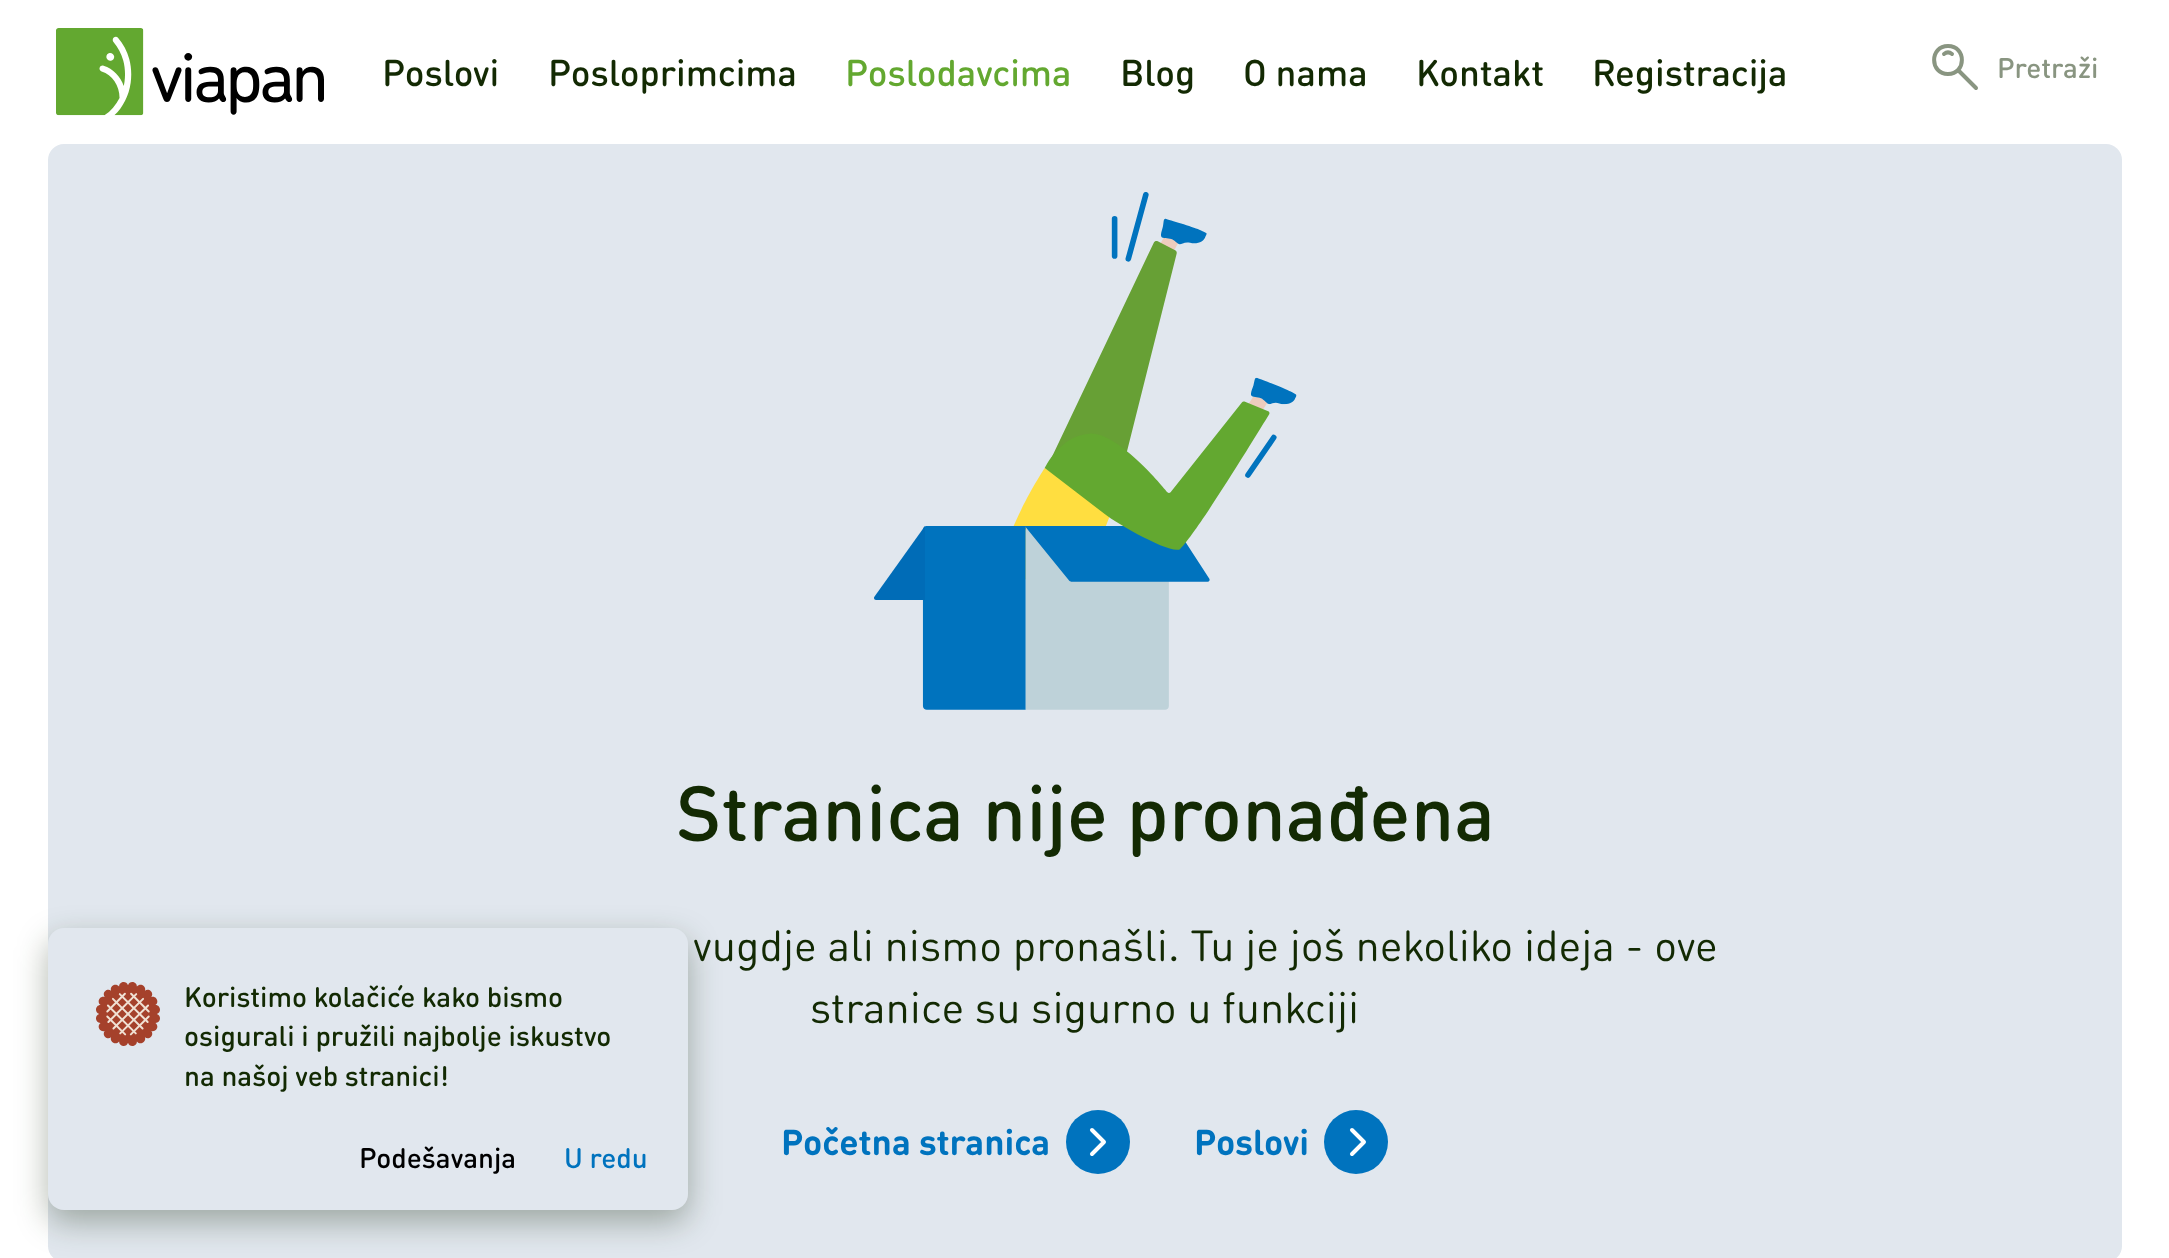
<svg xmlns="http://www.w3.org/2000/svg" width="2169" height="1258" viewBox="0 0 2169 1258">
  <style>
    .t1 { font: 500 36.75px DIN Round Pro; fill: #132a03; }
    .t2 { font: 500 36.75px DIN Round Pro; fill: #63a830; }
    .t3 { font: 500 28px DIN Round Pro; fill: #899581; }
    .t4 { font: 500 28px DIN Round Pro; fill: #132a03; }
    .t5 { font: 500 28px DIN Round Pro; fill: #000; }
    .t6 { font: 500 28px DIN Round Pro; fill: #0073be; }
    .t7 { font: 500 76.9px DIN Round Pro; fill: #132a03; }
    .t8 { font: 42.95px DIN Round Pro; fill: #132a03; }
    .t9 { font: bold 35.5px DIN Round Pro; fill: #0073be; }
  </style>
  <rect width="100%" height="100%" fill="#fff"/>
  <image x="56" y="28" width="268" height="88" href="images/1.png"/>
  <text x="382" y="86" class="t1">Poslovi</text>
  <text x="548" y="86" class="t1">Posloprimcima</text>
  <text x="845" y="86" class="t2">Poslodavcima</text>
  <text x="1120" y="86" class="t1">Blog</text>
  <text x="1243" y="86" class="t1">O nama</text>
  <text x="1416" y="86" class="t1">Kontakt</text>
  <text x="1592" y="86" class="t1">Registracija</text>
  <path d="M1944 54C1946.5 52 1949.5 52 1952 54M1948 46C1966.5 46 1966.5 74 1948 74C1929.5 74 1929.5 46 1948 46M1958.5 70.5L1976 88" fill="none" stroke="#899581" stroke-width="4" stroke-linecap="round" stroke-linejoin="round"/>
  <text x="1997" y="78" class="t3">Pretraži</text>
  <rect x="48" y="144" width="2074" height="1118" rx="16" fill="#e1e7ee"/>
  <rect x="48" y="940" width="640" height="282" rx="16" fill="#13250554" filter="blur(16px)"/>
  <rect x="48" y="928" width="640" height="282" rx="16" fill="#e1e7ee"/>
  <image x="96" y="982" width="64" height="64" href="images/2.png"/>
  <text x="184" y="1007" class="t4">Koristimo kolačiće kako bismo</text>
  <text x="184" y="1046" class="t4">osigurali i pružili najbolje iskustvo</text>
  <text x="184" y="1086" class="t4">na našoj veb stranici!</text>
  <text x="359" y="1168" class="t5">Podešavanja</text>
  <text x="564" y="1168" class="t6">U redu</text>
  <image x="874" y="192" width="423" height="518" href="images/3.png"/>
  <text x="676" y="841" class="t7">Stranica nije pronađena</text>
  <text x="693" y="961" class="t8">vugdje ali nismo pronašli. Tu je još nekoliko ideja - ove</text>
  <text x="810" y="1023" class="t8">stranice su sigurno u funkciji</text>
  <text x="781" y="1155" class="t9">Početna stranica</text>
  <circle cx="1098" cy="1142" r="32" fill="#0073be"/>
  <path d="M1092 1130L1104 1142L1092 1154" fill="none" stroke="#fff" stroke-width="4" stroke-linecap="round" stroke-linejoin="round"/>
  <text x="1194" y="1155" class="t9">Poslovi</text>
  <circle cx="1356" cy="1142" r="32" fill="#0073be"/>
  <path d="M1352 1130L1364 1142L1352 1154" fill="none" stroke="#fff" stroke-width="4" stroke-linecap="round" stroke-linejoin="round"/>
</svg>
